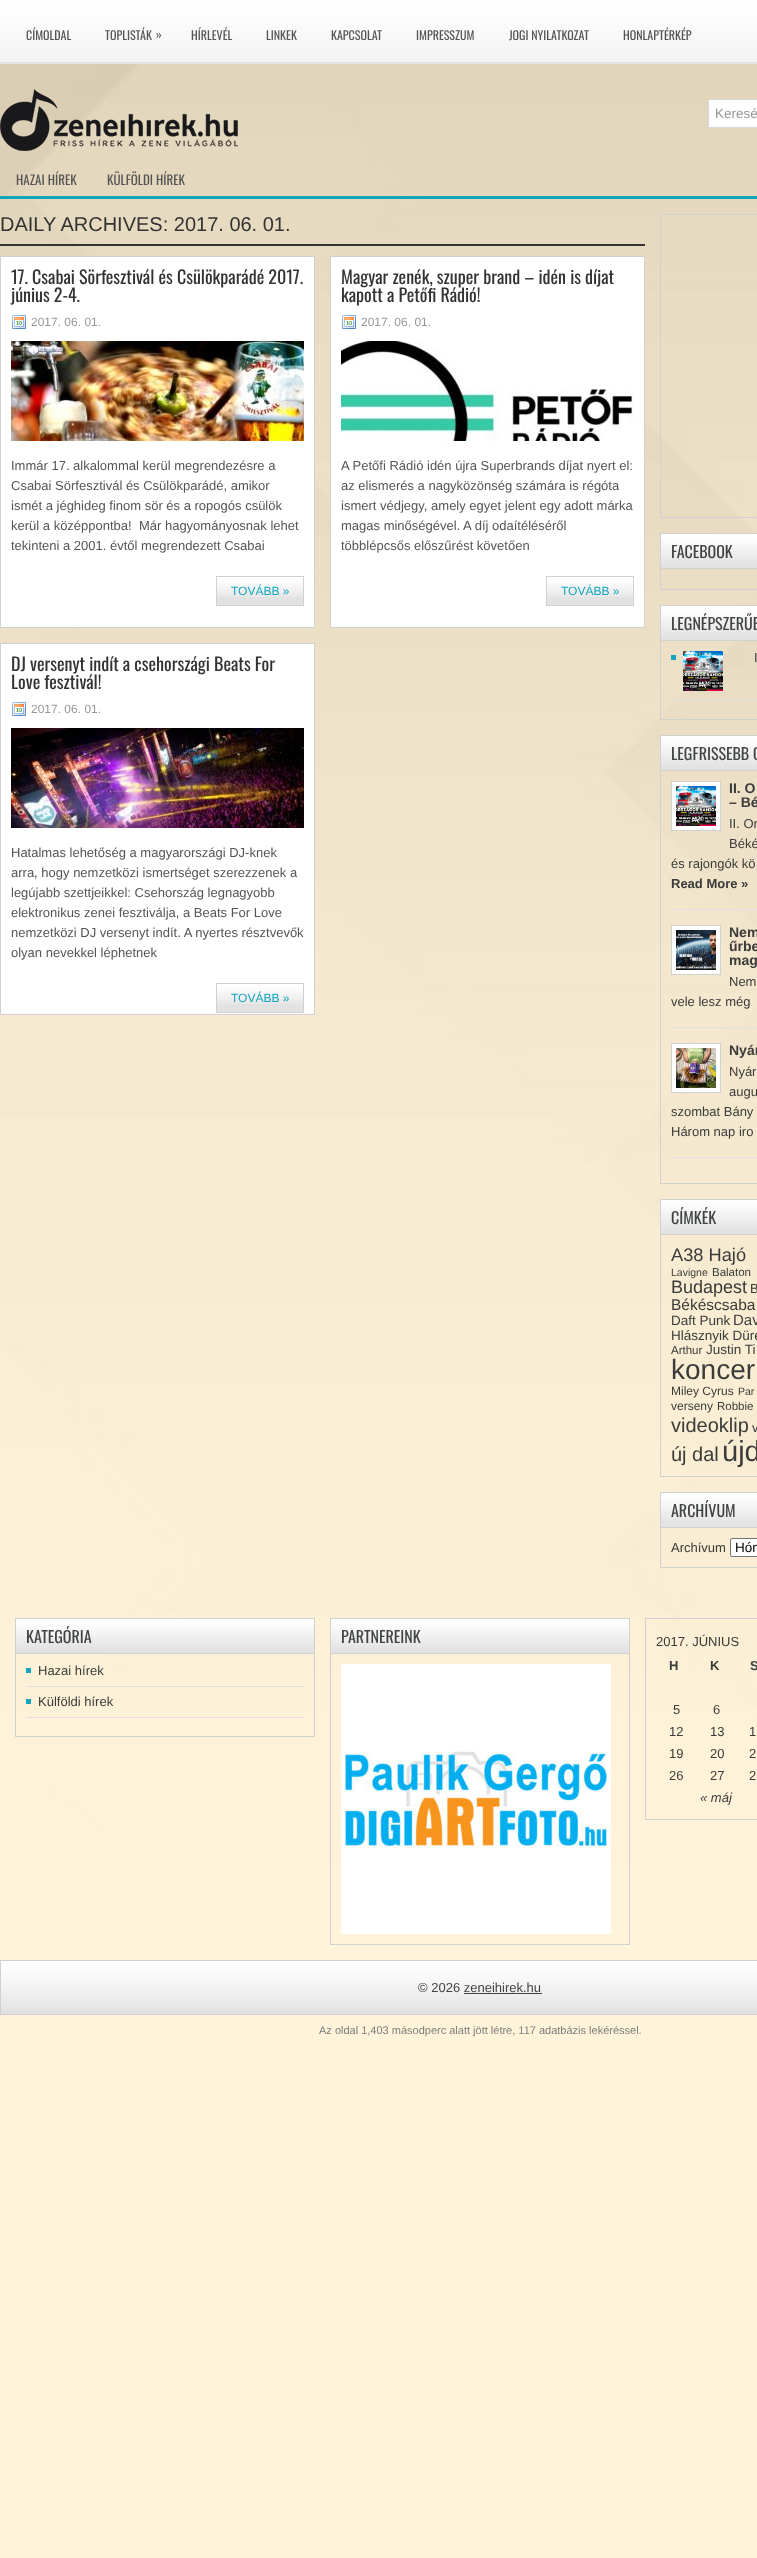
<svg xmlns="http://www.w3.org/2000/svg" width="757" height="2558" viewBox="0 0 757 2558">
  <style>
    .t1 { font: 12px Oswald; fill: #555; }
    .t2 { font: 13.5px Liberation Sans; fill: #979797; }
    .t3 { font: 13px Oswald; fill: #555; }
    .t4 { font: 20px Liberation Sans; fill: #333; }
    .t5 { font: 18px Oswald; fill: #333; }
    .t6 { font: 12px Liberation Sans; fill: #979797; }
    .t7 { font: 13px Liberation Sans; fill: #555; }
    .t8 { font: 12px Liberation Sans; fill: #14a5bf; }
    .t9 { font: 16px Oswald; fill: #414445; }
    .t10 { font: 13px Liberation Sans; fill: #3b3b3b; }
    .t11 { font: bold 14px Liberation Sans; fill: #3b3b3b; }
    .t12 { font: bold 13px Liberation Sans; fill: #3b3b3b; }
    .t13 { font: 18.25px Liberation Sans; fill: #3b3b3b; }
    .t14 { font: 10.5px Liberation Sans; fill: #3b3b3b; }
    .t15 { font: 11.5px Liberation Sans; fill: #3b3b3b; }
    .t16 { font: 18px Liberation Sans; fill: #3b3b3b; }
    .t17 { font: 15.5px Liberation Sans; fill: #3b3b3b; }
    .t18 { font: 13.5px Liberation Sans; fill: #3b3b3b; }
    .t19 { font: 15px Liberation Sans; fill: #3b3b3b; }
    .t20 { font: 28px Liberation Sans; fill: #3b3b3b; }
    .t21 { font: 12px Liberation Sans; fill: #3b3b3b; }
    .t22 { font: 20px Liberation Sans; fill: #3b3b3b; }
    .t23 { font: 29px Liberation Sans; fill: #3b3b3b; }
    .t24 { font: 13.5px Liberation Sans; fill: #000; }
    .t25 { font: italic 13px Liberation Sans; fill: #3b3b3b; }
    .t26 { font: 13px Liberation Sans; fill: #414445; }
    .t27 { font: 11px Liberation Sans; fill: #7d7d7d; }
  </style>
  <rect width="100%" height="100%" fill="#fff"/>
  <image x="0" y="64" width="757" height="2494" href="images/1.png"/>
  <image x="0" y="0" width="757" height="64" href="images/2.png"/>
  <text x="26" y="40" class="t1">CÍMOLDAL</text>
  <text x="105" y="40" class="t1">TOPLISTÁK</text>
  <text x="156" y="39" class="t1">»</text>
  <text x="191" y="40" class="t1">HÍRLEVÉL</text>
  <text x="266" y="40" class="t1">LINKEK</text>
  <text x="331" y="40" class="t1">KAPCSOLAT</text>
  <text x="416" y="40" class="t1">IMPRESSZUM</text>
  <text x="509" y="40" class="t1">JOGI NYILATKOZAT</text>
  <text x="623" y="40" class="t1">HONLAPTÉRKÉP</text>
  <image x="0" y="89" width="238" height="62" href="images/3.png"/>
  <rect x="708.5" y="99.5" width="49" height="28" fill="#fff" stroke="#d8d8d8"/>
  <text x="715" y="118" class="t2">Keresé</text>
  <rect x="0" y="196" width="757" height="3" fill="#14a5be"/>
  <text x="16" y="185" class="t3">HAZAI HÍREK</text>
  <text x="107" y="185" class="t3">KÜLFÖLDI HÍREK</text>
  <rect x="0" y="244" width="645" height="2" fill="#333"/>
  <text x="0" y="231" class="t4">DAILY ARCHIVES: 2017. 06. 01.</text>
  <rect x="0.5" y="256.5" width="314" height="371" fill="#fff" stroke="#d1d1d1"/>
  <text x="11" y="284" class="t5">17. Csabai Sörfesztivál és Csülökparádé 2017.</text>
  <text x="11" y="302" class="t5">június 2-4.</text>
  <image x="12" y="315" width="14" height="14" href="images/4.png"/>
  <text x="31" y="326" class="t6">2017. 06. 01.</text>
  <image x="11" y="341" width="293" height="100" href="images/5.png"/>
  <text x="11" y="470" class="t7">Immár 17. alkalommal kerül megrendezésre a</text>
  <text x="11" y="490" class="t7">Csabai Sörfesztivál és Csülökparádé, amikor</text>
  <text x="11" y="510" class="t7">ismét a jéghideg finom sör és a ropogós csülök</text>
  <text x="11" y="530" class="t7" xml:space="preserve">kerül a középpontba!  Már hagyományosnak lehet</text>
  <text x="11" y="550" class="t7">tekinteni a 2001. évtől megrendezett Csabai</text>
  <rect x="217" y="597" width="86" height="8" fill="#e2e2e2"/>
  <image x="217" y="577" width="86" height="20" href="images/6.png"/>
  <rect x="216.5" y="576.5" width="87" height="29" fill="none" stroke="#d1d1d1"/>
  <text x="231" y="595" class="t8">TOVÁBB »</text>
  <rect x="330.5" y="256.5" width="314" height="371" fill="#fff" stroke="#d1d1d1"/>
  <text x="341" y="284" class="t5">Magyar zenék, szuper brand – idén is díjat</text>
  <text x="341" y="302" class="t5">kapott a Petőfi Rádió!</text>
  <image x="342" y="315" width="14" height="14" href="images/4.png"/>
  <text x="361" y="326" class="t6">2017. 06. 01.</text>
  <image x="341" y="341" width="293" height="100" href="images/7.png"/>
  <text x="341" y="470" class="t7">A Petőfi Rádió idén újra Superbrands díjat nyert el:</text>
  <text x="341" y="490" class="t7">az elismerés a nagyközönség számára is régóta</text>
  <text x="341" y="510" class="t7">ismert védjegy, amely egyet jelent egy adott márka</text>
  <text x="341" y="530" class="t7">magas minőségével. A díj odaítéléséről</text>
  <text x="341" y="550" class="t7">többlépcsős előszűrést követően</text>
  <rect x="547" y="597" width="86" height="8" fill="#e2e2e2"/>
  <image x="547" y="577" width="86" height="20" href="images/6.png"/>
  <rect x="546.5" y="576.5" width="87" height="29" fill="none" stroke="#d1d1d1"/>
  <text x="561" y="595" class="t8">TOVÁBB »</text>
  <rect x="0.5" y="643.5" width="314" height="371" fill="#fff" stroke="#d1d1d1"/>
  <text x="11" y="671" class="t5">DJ versenyt indít a csehországi Beats For</text>
  <text x="11" y="689" class="t5">Love fesztivál!</text>
  <image x="12" y="702" width="14" height="14" href="images/4.png"/>
  <text x="31" y="713" class="t6">2017. 06. 01.</text>
  <image x="11" y="728" width="293" height="100" href="images/8.png"/>
  <text x="11" y="857" class="t7">Hatalmas lehetőség a magyarországi DJ-knek</text>
  <text x="11" y="877" class="t7">arra, hogy nemzetközi ismertséget szerezzenek a</text>
  <text x="11" y="897" class="t7">legújabb szettjeikkel: Csehország legnagyobb</text>
  <text x="11" y="917" class="t7">elektronikus zenei fesztiválja, a Beats For Love</text>
  <text x="11" y="937" class="t7">nemzetközi DJ versenyt indít. A nyertes résztvevők</text>
  <text x="11" y="957" class="t7">olyan nevekkel léphetnek</text>
  <rect x="217" y="1004" width="86" height="8" fill="#e2e2e2"/>
  <image x="217" y="984" width="86" height="20" href="images/6.png"/>
  <rect x="216.5" y="983.5" width="87" height="29" fill="none" stroke="#d1d1d1"/>
  <text x="231" y="1002" class="t8">TOVÁBB »</text>
  <rect x="660.5" y="214.5" width="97" height="303" fill="none" stroke="#d1d1d1"/>
  <rect x="660.5" y="533.5" width="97" height="56" fill="none" stroke="#d1d1d1"/>
  <image x="661" y="534" width="96" height="34" href="images/9.png"/>
  <rect x="661" y="568" width="96" height="1" fill="#d1d1d1"/>
  <text x="671" y="558" class="t9">FACEBOOK</text>
  <rect x="660.5" y="605.5" width="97" height="114" fill="none" stroke="#d1d1d1"/>
  <image x="661" y="606" width="96" height="34" href="images/9.png"/>
  <rect x="661" y="640" width="96" height="1" fill="#d1d1d1"/>
  <text x="671" y="630" class="t9">LEGNÉPSZERŰB</text>
  <rect x="671" y="655" width="5" height="5" fill="#14a5be"/>
  <rect x="671" y="700" width="86" height="1" fill="#e1e1e1"/>
  <image x="683" y="651" width="40" height="40" href="images/10.png"/>
  <text x="754" y="662" class="t10">I</text>
  <rect x="660.5" y="735.5" width="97" height="448" fill="none" stroke="#d1d1d1"/>
  <image x="661" y="736" width="96" height="34" href="images/9.png"/>
  <rect x="661" y="770" width="96" height="1" fill="#d1d1d1"/>
  <text x="671" y="760" class="t9">LEGFRISSEBB C</text>
  <rect x="671" y="909" width="86" height="1" fill="#e1e1e1"/>
  <rect x="671.5" y="781.5" width="49" height="49" fill="#fff" stroke="#d1d1d1"/>
  <image x="676" y="786" width="40" height="40" href="images/11.png"/>
  <text x="729" y="793" class="t11">II. O</text>
  <text x="729" y="807" class="t11">– Bé</text>
  <text x="729" y="828" class="t10">II. Or</text>
  <text x="729" y="848" class="t10">Béké</text>
  <text x="671" y="868" class="t10">és rajongók kö</text>
  <text x="671" y="888" class="t12">Read More »</text>
  <rect x="671" y="1027" width="86" height="1" fill="#e1e1e1"/>
  <rect x="671.5" y="925.5" width="49" height="49" fill="#fff" stroke="#d1d1d1"/>
  <image x="676" y="930" width="40" height="40" href="images/12.png"/>
  <text x="729" y="937" class="t11">Nem</text>
  <text x="729" y="951" class="t11">űrbe</text>
  <text x="729" y="965" class="t11">mag</text>
  <text x="729" y="986" class="t10">Nem</text>
  <text x="671" y="1006" class="t10">vele lesz még</text>
  <rect x="671" y="1157" width="86" height="1" fill="#e1e1e1"/>
  <rect x="671.5" y="1043.5" width="49" height="49" fill="#fff" stroke="#d1d1d1"/>
  <image x="676" y="1048" width="40" height="40" href="images/13.png"/>
  <text x="729" y="1055" class="t11">Nyár</text>
  <text x="729" y="1076" class="t10">Nyár</text>
  <text x="729" y="1096" class="t10">augu</text>
  <text x="671" y="1116" class="t10">szombat Bány</text>
  <text x="671" y="1136" class="t10">Három nap iro</text>
  <rect x="660.5" y="1199.5" width="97" height="277" fill="none" stroke="#d1d1d1"/>
  <image x="661" y="1200" width="96" height="34" href="images/9.png"/>
  <rect x="661" y="1234" width="96" height="1" fill="#d1d1d1"/>
  <text x="671" y="1224" class="t9">CÍMKÉK</text>
  <text x="671" y="1261" class="t13">A38 Hajó</text>
  <text x="671" y="1276" class="t14">Lavigne</text>
  <text x="712" y="1276" class="t15">Balaton</text>
  <text x="671" y="1293" class="t16">Budapest</text>
  <text x="750" y="1293" class="t10">B</text>
  <text x="671" y="1310" class="t17">Békéscsaba</text>
  <text x="671" y="1325" class="t18">Daft Punk</text>
  <text x="733" y="1325" class="t19">Dav</text>
  <text x="671" y="1340" class="t18">Hlásznyik Düre</text>
  <text x="671" y="1354" class="t15">Arthur</text>
  <text x="706" y="1354" class="t18">Justin Ti</text>
  <text x="671" y="1379" class="t20">koncer</text>
  <text x="671" y="1395" class="t21">Miley Cyrus</text>
  <text x="738" y="1395" class="t14">Par</text>
  <text x="671" y="1410" class="t21">verseny</text>
  <text x="717" y="1410" class="t15">Robbie</text>
  <text x="671" y="1432" class="t22">videoklip</text>
  <text x="752" y="1432" class="t10">v</text>
  <text x="671" y="1461" class="t22">új dal</text>
  <text x="722" y="1461" class="t23">újd</text>
  <rect x="660.5" y="1492.5" width="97" height="75" fill="none" stroke="#d1d1d1"/>
  <image x="661" y="1493" width="96" height="34" href="images/9.png"/>
  <rect x="661" y="1527" width="96" height="1" fill="#d1d1d1"/>
  <text x="671" y="1517" class="t9">ARCHÍVUM</text>
  <text x="671" y="1552" class="t10">Archívum</text>
  <rect x="730.5" y="1538.5" width="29" height="18" rx="1.5" fill="#fff" stroke="#767676"/>
  <text x="735" y="1552" class="t24">Hón</text>
  <rect x="15.5" y="1618.5" width="299" height="118" fill="none" stroke="#d1d1d1"/>
  <image x="16" y="1619" width="298" height="34" href="images/14.png"/>
  <rect x="16" y="1653" width="298" height="1" fill="#d1d1d1"/>
  <text x="26" y="1643" class="t9">KATEGÓRIA</text>
  <rect x="26" y="1668" width="5" height="5" fill="#14a5be"/>
  <rect x="26" y="1686" width="278" height="1" fill="#e1e1e1"/>
  <text x="38" y="1675" class="t10">Hazai hírek</text>
  <rect x="26" y="1699" width="5" height="5" fill="#14a5be"/>
  <rect x="26" y="1717" width="278" height="1" fill="#e1e1e1"/>
  <text x="38" y="1706" class="t10">Külföldi hírek</text>
  <rect x="330.5" y="1618.5" width="299" height="326" fill="none" stroke="#d1d1d1"/>
  <image x="331" y="1619" width="298" height="34" href="images/14.png"/>
  <rect x="331" y="1653" width="298" height="1" fill="#d1d1d1"/>
  <text x="341" y="1643" class="t9">PARTNEREINK</text>
  <image x="341" y="1664" width="270" height="270" href="images/15.png"/>
  <rect x="645.5" y="1618.5" width="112" height="201" fill="none" stroke="#d1d1d1"/>
  <text x="656" y="1646" class="t10">2017. JÚNIUS</text>
  <text x="669" y="1670" class="t12">H</text>
  <text x="710" y="1670" class="t12">K</text>
  <text x="750" y="1670" class="t12">S</text>
  <text x="673" y="1714" class="t10">5</text>
  <text x="713" y="1714" class="t10">6</text>
  <text x="669" y="1736" class="t10">12</text>
  <text x="710" y="1736" class="t10">13</text>
  <text x="749" y="1736" class="t10">1</text>
  <text x="669" y="1758" class="t10">19</text>
  <text x="710" y="1758" class="t10">20</text>
  <text x="749" y="1758" class="t10">2</text>
  <text x="669" y="1780" class="t10">26</text>
  <text x="710" y="1780" class="t10">27</text>
  <text x="749" y="1780" class="t10">2</text>
  <text x="700" y="1802" class="t25">« máj</text>
  <rect x="1" y="2010" width="756" height="4" fill="#e1e1e1"/>
  <image x="1" y="1961" width="756" height="49" href="images/16.png"/>
  <rect x="0.5" y="1960.5" width="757" height="54" fill="none" stroke="#d1d1d1"/>
  <text x="418" y="1992" class="t26">© 2026 zeneihirek.hu</text>
  <rect x="464" y="1993" width="78" height="1" fill="#434141"/>
  <text x="319" y="2034" class="t27">Az oldal 1,403 másodperc alatt jött létre, 117 adatbázis lekéréssel.</text>
</svg>
